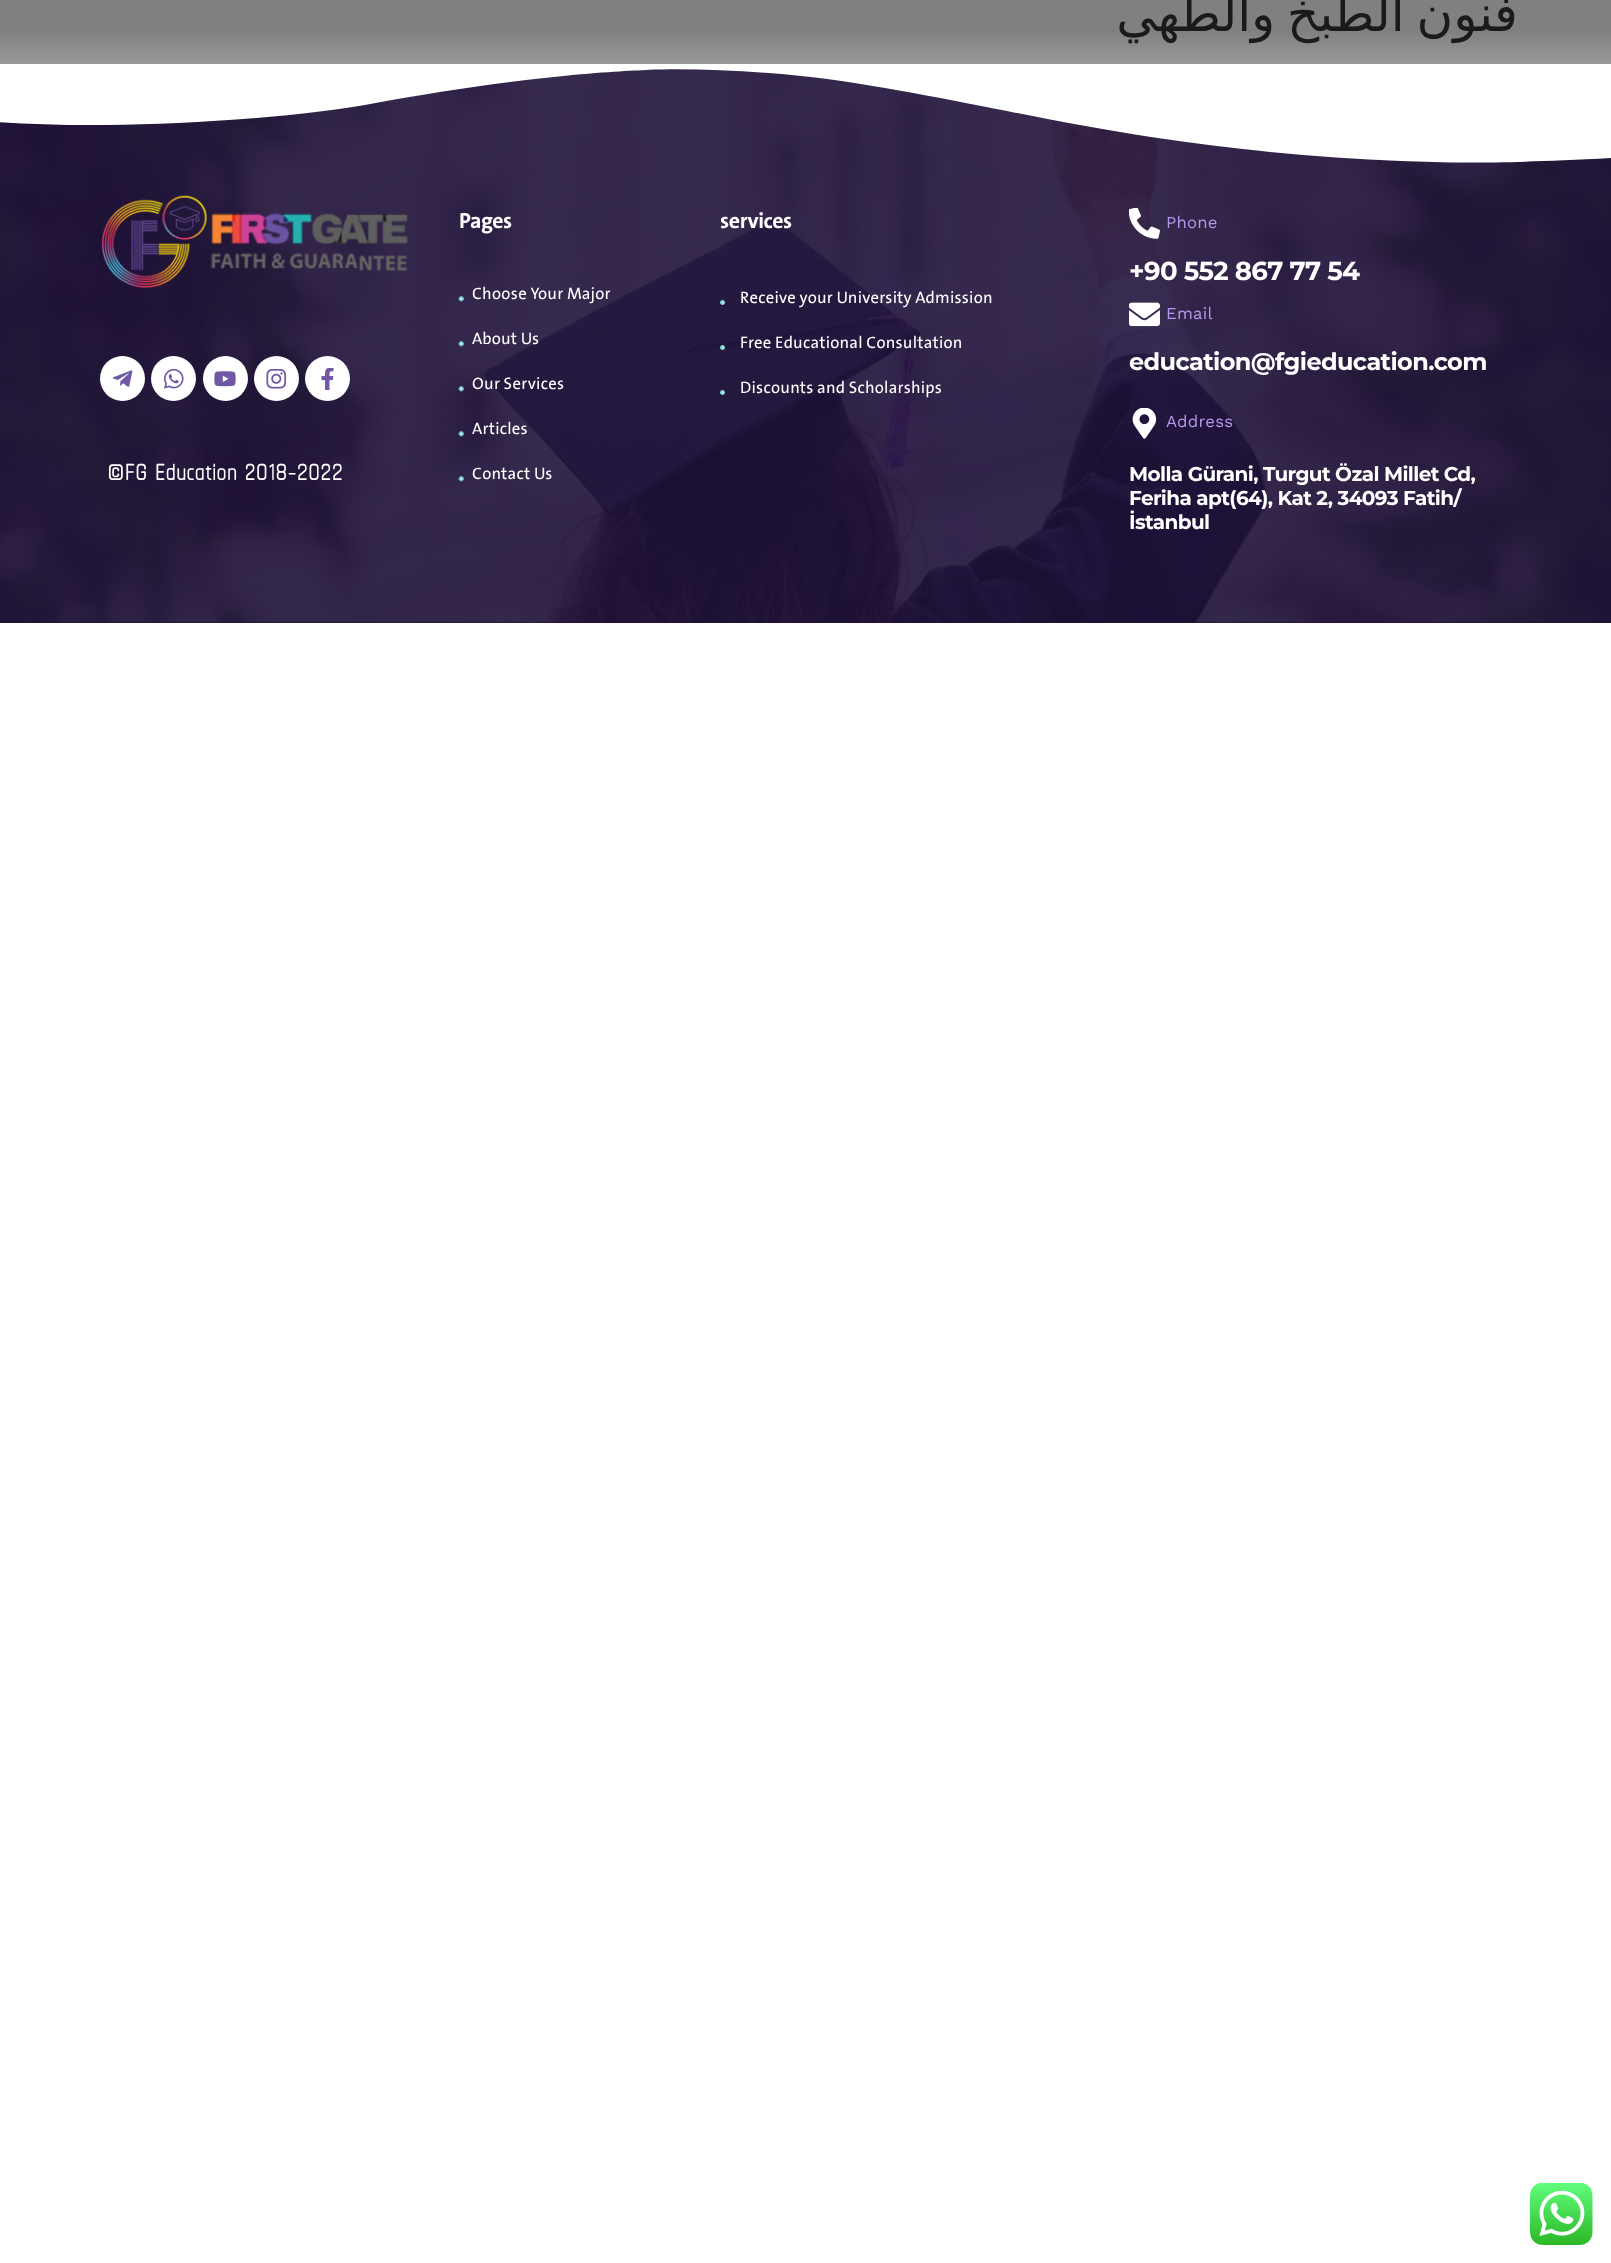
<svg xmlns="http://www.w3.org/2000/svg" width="1611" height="2263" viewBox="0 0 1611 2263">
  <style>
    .t1 { font: 50px DejaVu Sans; direction: rtl; fill: #333; }
    .t2 { font: bold 40px Chathura; fill: #fff; }
    .t3 { font: bold 22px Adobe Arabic; letter-spacing: -0.5px; fill: #fff; }
    .t4 { font: 500 16.7px Adobe Arabic; letter-spacing: 0.25px; fill: #fff; }
    .t5 { font: 16.7px Work Sans; letter-spacing: 0.25px; fill: #b399ed; }
    .t6 { font: bold 26px Montserrat; letter-spacing: -0.6px; fill: #fff; }
    .t7 { font: bold 24px Montserrat; letter-spacing: -0.6px; fill: #fff; }
    .t8 { font: bold 20px Montserrat; letter-spacing: -0.6px; fill: #fff; }
  </style>
  <defs>
    <linearGradient id="g1" gradientUnits="userSpaceOnUse" x1="806" y1="0" x2="806" y2="200"><stop offset="0.15" stop-color="#000" stop-opacity="0.5"/><stop offset="1" stop-color="#000" stop-opacity="0"/></linearGradient>
  </defs>
  <rect width="100%" height="100%" fill="#fff"/>
  <text x="1518" y="31" word-spacing="-4" class="t1">فنون الطبخ والطهي</text>
  <rect x="0" y="0" width="1611" height="64" fill="url(#g1)"/>
  <rect x="0" y="622" width="1611" height="1" fill="#281b45"/>
  <image x="0" y="69" width="1611" height="554" href="images/1.png"/>
  <rect x="0" y="69" width="1611" height="554" fill="#1e113ae3"/>
  <path d="M646 70C693 68 752 71 801 76C849 80 946 99 1007 111C1162 143 1281 156 1401 161C1449 163 1501 164 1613 158C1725 152 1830 133 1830 133V64H-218V94C-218 94-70 127 107 125C187 124 297 118 381 102C425 94 488 84 544 78C600 72 625 71 646 70Z" fill="#fff"/>
  <image x="102" y="195" width="306" height="93" href="images/2.png"/>
  <circle cx="122.5" cy="378.5" r="22.5" fill="#fff"/>
  <image x="112" y="370" width="21" height="17" href="images/3.png"/>
  <circle cx="173.5" cy="378.5" r="22.5" fill="#fff"/>
  <image x="164" y="368" width="20" height="21" href="images/4.png"/>
  <circle cx="225.5" cy="378.5" r="22.5" fill="#fff"/>
  <image x="214" y="371" width="22" height="16" href="images/5.png"/>
  <circle cx="276.5" cy="378.5" r="22.5" fill="#fff"/>
  <image x="266" y="369" width="21" height="20" href="images/6.png"/>
  <circle cx="327.5" cy="378.5" r="22.5" fill="#fff"/>
  <image x="321" y="368" width="13" height="22" href="images/7.png"/>
  <text x="107" y="480" class="t2">©FG Education 2018-2022</text>
  <text x="459" y="228" class="t3">Pages</text>
  <image x="458" y="296" width="6" height="6" href="images/8.png"/>
  <text x="472" y="299" class="t4">Choose Your Major</text>
  <image x="458" y="341" width="6" height="6" href="images/9.png"/>
  <text x="472" y="344" class="t4">About Us</text>
  <image x="458" y="386" width="6" height="6" href="images/10.png"/>
  <text x="472" y="389" class="t4">Our Services</text>
  <image x="458" y="431" width="6" height="6" href="images/11.png"/>
  <text x="472" y="434" class="t4">Articles</text>
  <image x="458" y="476" width="6" height="6" href="images/12.png"/>
  <text x="472" y="479" class="t4">Contact Us</text>
  <text x="720" y="228" class="t3">services</text>
  <image x="720" y="300" width="5" height="5" href="images/13.png"/>
  <text x="740" y="303" class="t4">Receive your University Admission</text>
  <image x="720" y="345" width="5" height="5" href="images/14.png"/>
  <text x="740" y="348" class="t4">Free Educational Consultation</text>
  <image x="720" y="390" width="5" height="5" href="images/15.png"/>
  <text x="740" y="393" class="t4">Discounts and Scholarships</text>
  <image x="1129" y="208" width="31" height="31" href="images/16.png"/>
  <text x="1166" y="228" class="t5">Phone</text>
  <text x="1129" y="280" class="t6">+90 552 867 77 54</text>
  <image x="1129" y="302" width="31" height="25" href="images/17.png"/>
  <text x="1166" y="319" class="t5">Email</text>
  <text x="1129" y="370" class="t7">education@fgieducation.com</text>
  <image x="1132" y="408" width="25" height="31" href="images/18.png"/>
  <text x="1166" y="427" class="t5">Address</text>
  <text x="1129" y="481" class="t8">Molla Gürani, Turgut Özal Millet Cd,</text>
  <text x="1129" y="505" class="t8">Feriha apt(64), Kat 2, 34093 Fatih/</text>
  <text x="1129" y="529" class="t8">İstanbul</text>
  <image x="1530" y="2183" width="63" height="62" href="images/19.png"/>
</svg>
